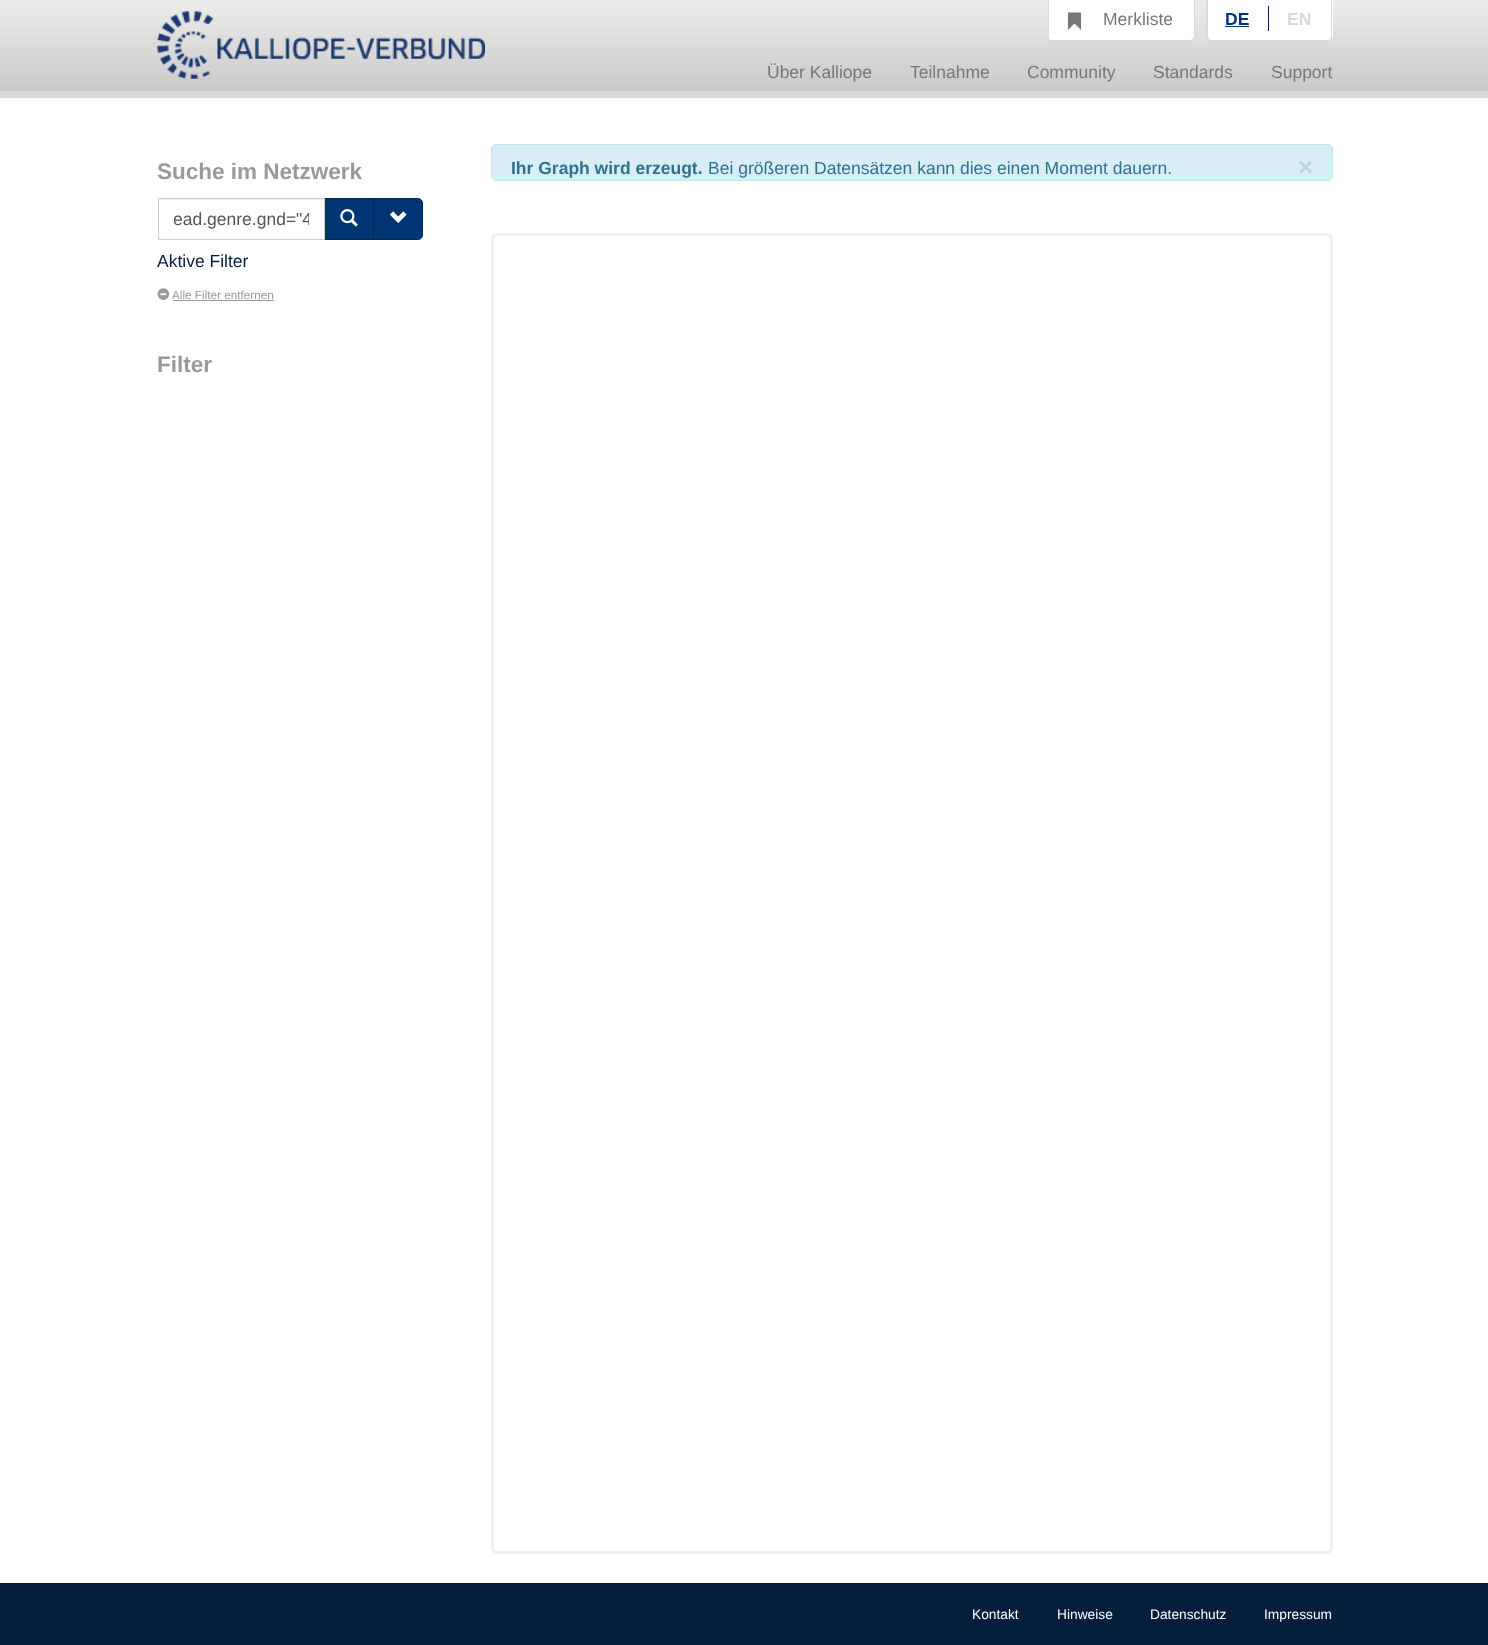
<svg xmlns="http://www.w3.org/2000/svg" width="1488" height="1645" viewBox="0 0 1488 1645">
  <style>
    .t1 { font: 17.5px Liberation Sans; fill: #777; }
    .t2 { font: bold 17.5px Liberation Sans; fill: #003574; }
    .t3 { font: bold 17.5px Liberation Sans; fill: #d9d9d9; }
    .t4 { font: bold 22.5px Liberation Sans; fill: #999; }
    .t5 { font: 17.5px Liberation Sans; fill: #555; }
    .t6 { font: 17.5px Liberation Sans; fill: #051e3c; }
    .t7 { font: 11.75px Liberation Sans; fill: #999; }
    .t8 { font: bold 17.5px Liberation Sans; fill: #31708f; }
    .t9 { font: 17.5px Liberation Sans; fill: #31708f; }
    .t10 { font: bold 26px Liberation Sans; fill: #b7d4e2; }
    .t11 { font: 13.75px Liberation Sans; fill: #fff; }
  </style>
  <defs>
    <linearGradient id="g1" gradientUnits="userSpaceOnUse" x1="744" y1="0" x2="744" y2="91"><stop offset="0" stop-color="#ededed"/><stop offset="1" stop-color="#c9c9c9"/></linearGradient>
    <clipPath id="clip1"><rect x="174" y="209" width="135" height="20"/></clipPath>
  </defs>
  <rect width="100%" height="100%" fill="#fff"/>
  <rect x="0" y="0" width="1488" height="91" fill="url(#g1)"/>
  <rect x="0" y="91" width="1488" height="7" fill="#d9d9d9"/>
  <image x="157" y="11" width="328" height="68" href="images/1.png"/>
  <path d="M1048-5H1195V36C1195 39 1193 41 1190 41H1053C1050 41 1048 39 1048 36Z" fill="#fff"/>
  <path d="M1048-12H1195V36C1195 39 1193 41 1190 41H1052C1050 41 1048 39 1048 36ZM1049-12H1194V36C1194 38 1192 40 1190 40H1052C1050 40 1049 38 1049 36Z" fill="#d9d9d9" fill-rule="evenodd"/>
  <image x="1067" y="12" width="15" height="18" href="images/2.png"/>
  <text x="1103" y="25" class="t1">Merkliste</text>
  <path d="M1206-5H1333V36C1333 39 1331 41 1328 41H1211C1208 41 1206 39 1206 36Z" fill="#fff"/>
  <path d="M1332-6V36C1332 37 1332 39 1331 40L1330 39L1331 36V-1Z" fill="#d9d9d9"/>
  <path d="M1331 40C1330 40 1329 41 1328 41H1211C1210 41 1208 41 1208 40L1209 39L1211 40H1329L1330 39Z" fill="#00000026"/>
  <path d="M1208 40L1206 38V-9L1208 0V36L1209 39Z" fill="#00000026"/>
  <rect x="1268" y="6" width="1" height="25" fill="#051e3c"/>
  <text x="1225" y="25" class="t2">DE</text>
  <rect x="1225" y="26" width="24" height="1" fill="#003574"/>
  <text x="1287" y="25" class="t3">EN</text>
  <text x="767" y="78" class="t1">Über Kalliope</text>
  <text x="910" y="78" class="t1">Teilnahme</text>
  <text x="1027" y="78" class="t1">Community</text>
  <text x="1153" y="78" class="t1">Standards</text>
  <text x="1271" y="78" class="t1">Support</text>
  <text x="157" y="179" class="t4">Suche im Netzwerk</text>
  <rect x="159" y="199" width="165" height="1" fill="#ececec"/>
  <rect x="324.5" y="198.5" width="49" height="41" fill="#003574" stroke="#00295a"/>
  <rect x="158.5" y="198.5" width="166" height="41" fill="none" stroke="#ccc"/>
  <g clip-path="url(#clip1)">
    <text x="173" y="225" class="t5">ead.genre.gnd="4</text>
  </g>
  <image x="340" y="209" width="18" height="18" href="images/3.png"/>
  <path d="M373.5 198.5H418C420.5 198.5 422.5 200.5 422.5 203V235C422.5 237.5 420.5 239.5 418 239.5H373.5Z" fill="#003574" stroke="#00295a"/>
  <image x="389" y="211" width="18" height="12" href="images/4.png"/>
  <text x="157" y="267" class="t6">Aktive Filter</text>
  <image x="157" y="288" width="13" height="12" href="images/5.png"/>
  <text x="172" y="299" class="t7">Alle Filter entfernen</text>
  <rect x="173" y="300" width="101" height="1" fill="#999"/>
  <text x="157" y="372" class="t4">Filter</text>
  <rect x="491.5" y="144.5" width="841" height="36" rx="4.5" fill="#d9edf7" stroke="#bce8f1"/>
  <text x="511" y="174" class="t8">Ihr Graph wird erzeugt.</text>
  <text x="708" y="174" class="t9">Bei größeren Datensätzen kann dies einen Moment dauern.</text>
  <text x="1298" y="176" class="t10">×</text>
  <rect x="492.5" y="234.5" width="839" height="1318" rx="4.5" fill="none" stroke="#f0f0f0" stroke-width="3"/>
  <rect x="0" y="1583" width="1488" height="62" fill="#051e3c"/>
  <text x="972" y="1619" class="t11">Kontakt</text>
  <text x="1057" y="1619" class="t11">Hinweise</text>
  <text x="1150" y="1619" class="t11">Datenschutz</text>
  <text x="1264" y="1619" class="t11">Impressum</text>
</svg>
